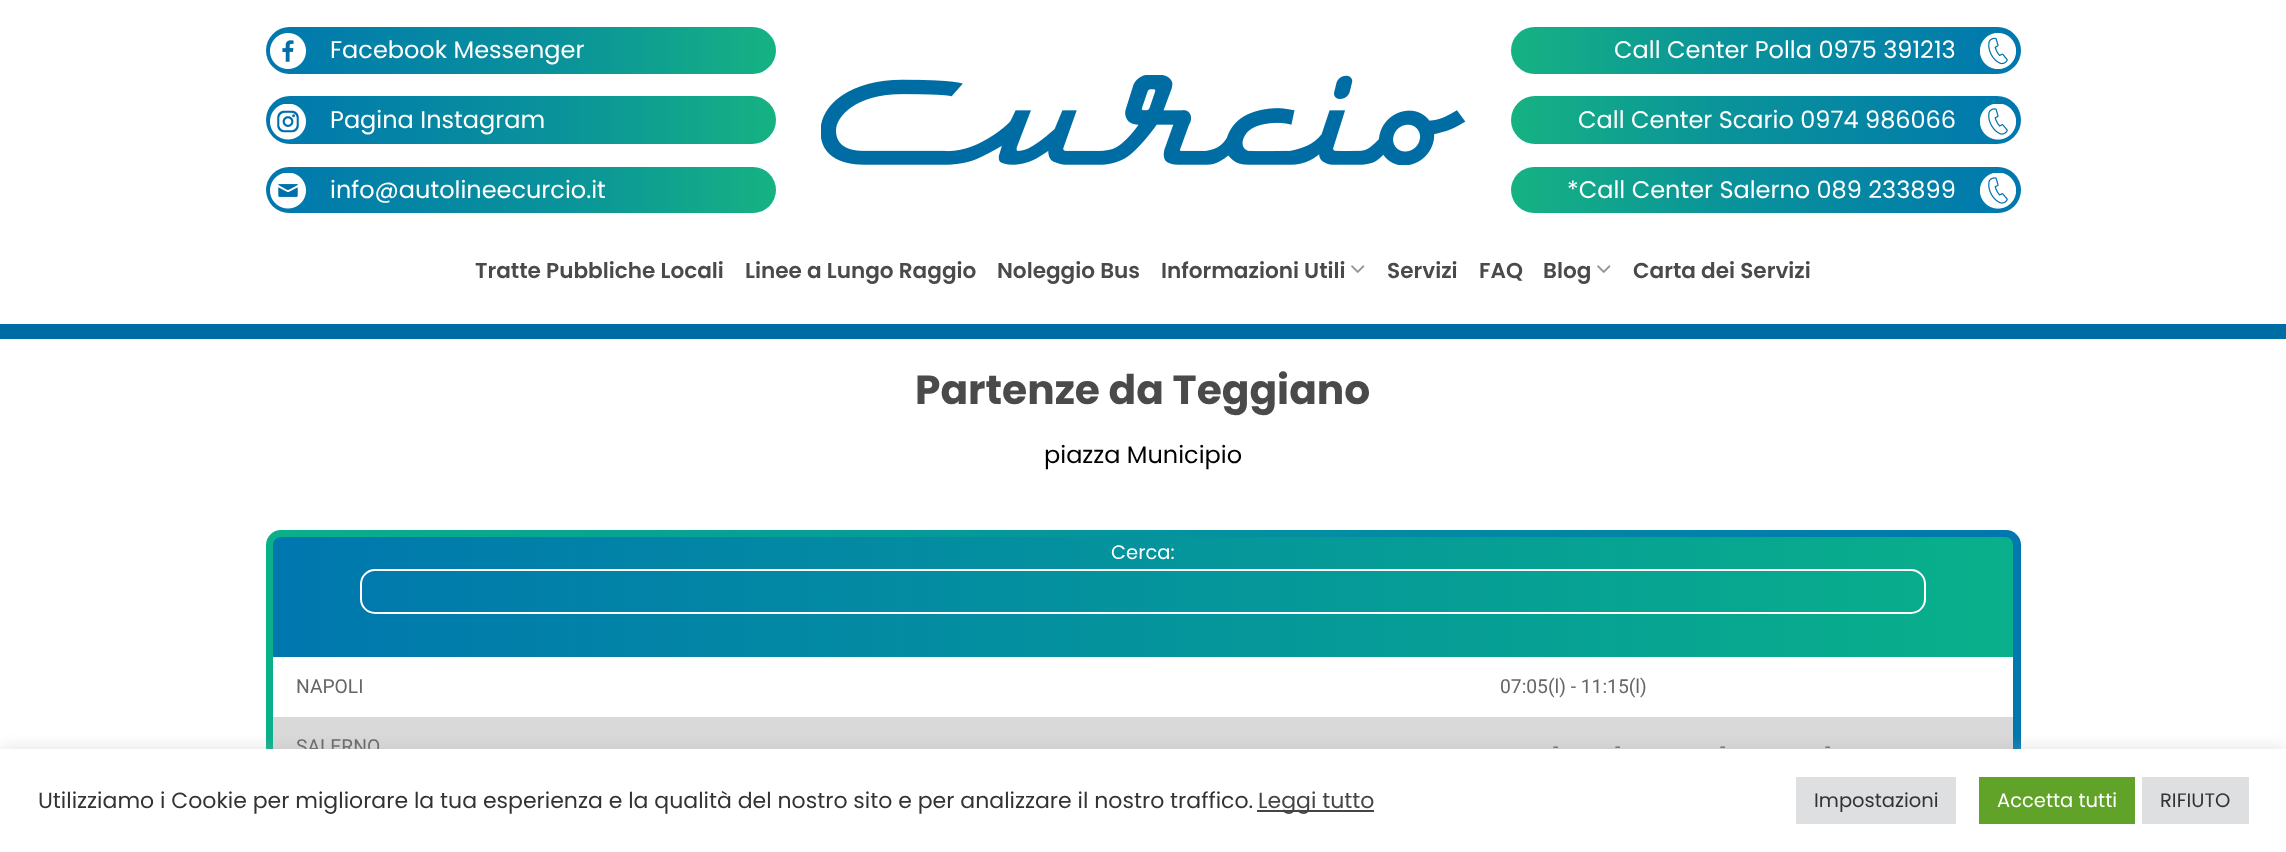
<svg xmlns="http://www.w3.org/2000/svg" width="2286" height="852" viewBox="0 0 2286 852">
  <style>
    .t1 { font: 24px Poppins; fill: #fff; }
    .t2 { font: 600 21.6px Poppins; fill: #4a4a4a; }
    .t3 { font: bold 40.75px Poppins; fill: #4a4a4a; }
    .t4 { font: 24px Poppins; fill: #000; }
    .t5 { font: 19.5px Poppins; fill: #fff; }
    .t6 { font: 19.25px Roboto; fill: #666; }
    .t7 { font: 22px Poppins; fill: #333; }
    .t8 { font: 22px Poppins; fill: #444; }
    .t9 { font: 19.5px Poppins; fill: #333; }
  </style>
  <defs>
    <linearGradient id="g1" gradientUnits="userSpaceOnUse" x1="776" y1="50" x2="266" y2="50"><stop offset="0" stop-color="#16b282"/><stop offset="0.42" stop-color="#0a939a"/><stop offset="1" stop-color="#0077af"/></linearGradient>
    <linearGradient id="g2" gradientUnits="userSpaceOnUse" x1="776" y1="120" x2="266" y2="120"><stop offset="0" stop-color="#16b282"/><stop offset="0.42" stop-color="#0a939a"/><stop offset="1" stop-color="#0077af"/></linearGradient>
    <linearGradient id="g3" gradientUnits="userSpaceOnUse" x1="776" y1="190" x2="266" y2="190"><stop offset="0" stop-color="#16b282"/><stop offset="0.42" stop-color="#0a939a"/><stop offset="1" stop-color="#0077af"/></linearGradient>
    <linearGradient id="g4" gradientUnits="userSpaceOnUse" x1="1511" y1="50" x2="2021" y2="50"><stop offset="0" stop-color="#16b282"/><stop offset="0.42" stop-color="#0a939a"/><stop offset="1" stop-color="#0077af"/></linearGradient>
    <linearGradient id="g5" gradientUnits="userSpaceOnUse" x1="1511" y1="120" x2="2021" y2="120"><stop offset="0" stop-color="#16b282"/><stop offset="0.42" stop-color="#0a939a"/><stop offset="1" stop-color="#0077af"/></linearGradient>
    <linearGradient id="g6" gradientUnits="userSpaceOnUse" x1="1511" y1="190" x2="2021" y2="190"><stop offset="0" stop-color="#16b282"/><stop offset="0.42" stop-color="#0a939a"/><stop offset="1" stop-color="#0077af"/></linearGradient>
    <linearGradient id="g7" gradientUnits="userSpaceOnUse" x1="266" y1="725" x2="2021" y2="724"><stop offset="0" stop-color="#09b08a"/><stop offset="1" stop-color="#0077af"/></linearGradient>
    <linearGradient id="g8" gradientUnits="userSpaceOnUse" x1="2013" y1="725" x2="273" y2="724"><stop offset="0" stop-color="#09b08a"/><stop offset="1" stop-color="#0077af"/></linearGradient>
  </defs>
  <rect width="100%" height="100%" fill="#fff"/>
  <rect x="266" y="27" width="510" height="47" rx="23.5" fill="url(#g1)"/>
  <image x="270" y="33" width="36" height="36" href="images/1.png"/>
  <text x="330" y="58" class="t1">Facebook Messenger</text>
  <rect x="266" y="96" width="510" height="48" rx="24" fill="url(#g2)"/>
  <image x="270" y="104" width="36" height="36" href="images/2.png"/>
  <text x="330" y="128" class="t1">Pagina Instagram</text>
  <rect x="266" y="167" width="510" height="46" rx="23" fill="url(#g3)"/>
  <image x="270" y="173" width="36" height="36" href="images/3.png"/>
  <text x="330" y="198" class="t1">info@autolineecurcio.it</text>
  <image x="821" y="75" width="645" height="90" href="images/4.png"/>
  <rect x="1511" y="27" width="510" height="47" rx="23.5" fill="url(#g4)"/>
  <text x="1614" y="58" class="t1">Call Center Polla 0975 391213</text>
  <image x="1980" y="33" width="36" height="36" href="images/5.png"/>
  <rect x="1511" y="96" width="510" height="48" rx="24" fill="url(#g5)"/>
  <text x="1578" y="128" class="t1">Call Center Scario 0974 986066</text>
  <image x="1980" y="104" width="36" height="36" href="images/6.png"/>
  <rect x="1511" y="167" width="510" height="46" rx="23" fill="url(#g6)"/>
  <text x="1567" y="198" class="t1">*Call Center Salerno 089 233899</text>
  <image x="1980" y="173" width="36" height="36" href="images/7.png"/>
  <text x="475" y="278" class="t2">Tratte Pubbliche Locali</text>
  <text x="745" y="278" class="t2">Linee a Lungo Raggio</text>
  <text x="997" y="278" class="t2">Noleggio Bus</text>
  <text x="1161" y="278" class="t2">Informazioni Utili</text>
  <image x="1351" y="265" width="14" height="8" href="images/8.png"/>
  <text x="1387" y="278" class="t2">Servizi</text>
  <text x="1479" y="278" class="t2">FAQ</text>
  <text x="1543" y="278" class="t2">Blog</text>
  <image x="1597" y="265" width="14" height="8" href="images/8.png"/>
  <text x="1633" y="278" class="t2">Carta dei Servizi</text>
  <rect x="0" y="324" width="2286" height="15" fill="#006ca4"/>
  <text x="915" y="404" class="t3">Partenze da Teggiano</text>
  <text x="1044" y="463" class="t4">piazza Municipio</text>
  <rect x="266" y="530" width="1755" height="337" rx="15" fill="url(#g7)"/>
  <rect x="273" y="537" width="1740" height="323" rx="8" fill="url(#g8)"/>
  <text x="1111" y="559" class="t5">Cerca:</text>
  <rect x="361" y="570" width="1564" height="43" rx="14" fill="none" stroke="#fff" stroke-width="2"/>
  <rect x="273" y="657" width="1740" height="60" fill="#fff"/>
  <text x="296" y="693" class="t6">NAPOLI</text>
  <text x="1500" y="693" class="t6">07:05(l) - 11:15(l)</text>
  <rect x="273" y="717" width="1740" height="32" fill="#d9d9d9"/>
  <text x="296" y="753" class="t6">SALERNO</text>
  <text x="1553" y="753" class="t6">-</text>
  <text x="1615" y="753" class="t6">-</text>
  <text x="1720" y="753" class="t6">-</text>
  <text x="1825" y="753" class="t6">-</text>
  <rect x="0" y="747" width="2286" height="104" fill="#acabab4d" filter="blur(7.5px)"/>
  <rect x="0" y="749" width="2286" height="103" fill="#fff"/>
  <text x="38" y="808" class="t7">Utilizziamo i Cookie per migliorare la tua esperienza e la qualità del nostro sito e per analizzare il nostro traffico.</text>
  <rect x="1257" y="810" width="117" height="2" fill="#444"/>
  <text x="1258" y="808" class="t8">Leggi tutto</text>
  <rect x="1796" y="777" width="160" height="47" fill="#dedfe0"/>
  <text x="1814" y="807" class="t9">Impostazioni</text>
  <rect x="1979" y="777" width="156" height="47" fill="#61a229"/>
  <text x="1997" y="807" class="t5">Accetta tutti</text>
  <rect x="2142" y="777" width="107" height="47" fill="#dedfe0"/>
  <text x="2160" y="807" class="t9">RIFIUTO</text>
</svg>
